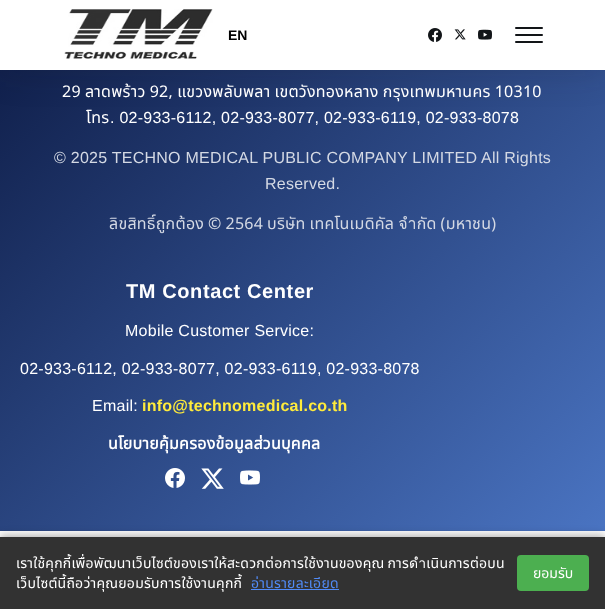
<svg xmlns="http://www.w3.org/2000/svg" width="605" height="609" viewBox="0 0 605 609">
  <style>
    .t1 { font: bold 14px Liberation Sans; fill: #000; }
    .t2 { font: 16px Noto Sans Thai; letter-spacing: 0.25px; fill: #fff; }
    .t3 { font: 16px Liberation Sans; letter-spacing: 0.25px; fill: #fff; }
    .t4 { font: 16px Liberation Sans; letter-spacing: 0.25px; fill: #d4d9e4; }
    .t5 { font: 16px Noto Sans Thai; letter-spacing: 0.25px; fill: #d4d9e4; }
    .t6 { font: bold 20px Liberation Sans; letter-spacing: 0.6px; fill: #fff; }
    .t7 { font: bold 16px Liberation Sans; letter-spacing: 0.25px; fill: #ffeb3b; }
    .t8 { font: bold 16px Noto Sans Thai; letter-spacing: 0.25px; fill: #fff; }
    .t9 { font: 14px Noto Sans Thai; letter-spacing: 0.25px; fill: #fff; }
    .t10 { font: 14px Noto Sans Thai; letter-spacing: 0.25px; fill: #518bf7; }
    .t11 { font: 14px Noto Sans Thai; fill: #fff; }
  </style>
  <defs>
    <linearGradient id="g1" gradientUnits="userSpaceOnUse" x1="19" y1="-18" x2="587" y2="550"><stop offset="0" stop-color="#0d1b45"/><stop offset="1" stop-color="#4a74c2"/></linearGradient>
  </defs>
  <rect width="100%" height="100%" fill="#fff"/>
  <rect x="0" y="70" width="605" height="461" fill="url(#g1)"/>
  <rect x="0" y="0" width="605" height="70" fill="#16191c2b" filter="blur(18px)"/>
  <rect x="0" y="0" width="605" height="70" fill="#fff"/>
  <image x="64" y="9" width="149" height="50" href="images/1.png"/>
  <text x="228" y="40" class="t1">EN</text>
  <image x="428" y="28" width="14" height="14" href="images/2.png"/>
  <image x="454" y="29" width="12" height="11" href="images/3.png"/>
  <image x="478" y="29" width="14" height="11" href="images/4.png"/>
  <rect x="515" y="34" width="28" height="2" rx="1" fill="#121518"/>
  <rect x="515" y="27" width="28" height="2" rx="1" fill="#121518"/>
  <rect x="515" y="41" width="28" height="2" rx="1" fill="#121518"/>
  <text x="62" y="97" word-spacing="-0.25" class="t2">29 ลาดพร้าว 92, แขวงพลับพลา เขตวังทองหลาง กรุงเทพมหานคร 10310</text>
  <text x="86" y="123" class="t2">โทร</text>
  <text x="110" y="123" class="t3">. 02-933-6112, 02-933-8077, 02-933-6119, 02-933-8078</text>
  <text x="54" y="163" class="t4">© 2025 TECHNO MEDICAL PUBLIC COMPANY LIMITED All Rights</text>
  <text x="265" y="189" class="t4">Reserved.</text>
  <text x="109" y="229" word-spacing="-0.5" class="t5">ลิขสิทธิ์ถูกต้อง © 2564 บริษัท เทคโนเมดิคัล จำกัด (มหาชน)</text>
  <text x="126" y="298" class="t6">TM Contact Center</text>
  <text x="125" y="336" class="t3">Mobile Customer Service:</text>
  <text x="20" y="374" class="t3">02-933-6112, 02-933-8077, 02-933-6119, 02-933-8078</text>
  <text x="92" y="411" class="t3">Email:</text>
  <text x="142" y="411" class="t7">info@technomedical.co.th</text>
  <text x="108" y="449" class="t8">นโยบายคุ้มครองข้อมูลส่วนบุคคล</text>
  <image x="165" y="468" width="20" height="20" href="images/5.png"/>
  <image x="201" y="468" width="23" height="21" href="images/6.png"/>
  <image x="240" y="470" width="20" height="15" href="images/7.png"/>
  <rect x="0" y="535" width="605" height="72" fill="#0000004d" filter="blur(4px)"/>
  <rect x="0" y="537" width="605" height="72" fill="#323232"/>
  <text x="16" y="568" word-spacing="-1" class="t9">เราใช้คุกกี้เพื่อพัฒนาเว็บไซต์ของเราให้สะดวกต่อการใช้งานของคุณ การดำเนินการต่อบน</text>
  <text x="16" y="588" class="t9">เว็บไซต์นี้ถือว่าคุณยอมรับการใช้งานคุกกี้</text>
  <text x="251" y="588" class="t10">อ่านรายละเอียด</text>
  <rect x="251" y="589" width="88" height="1" fill="#518bf7"/>
  <rect x="517" y="555" width="72" height="36" rx="4" fill="#4caf50"/>
  <text x="533" y="578" class="t11">ยอมรับ</text>
</svg>
